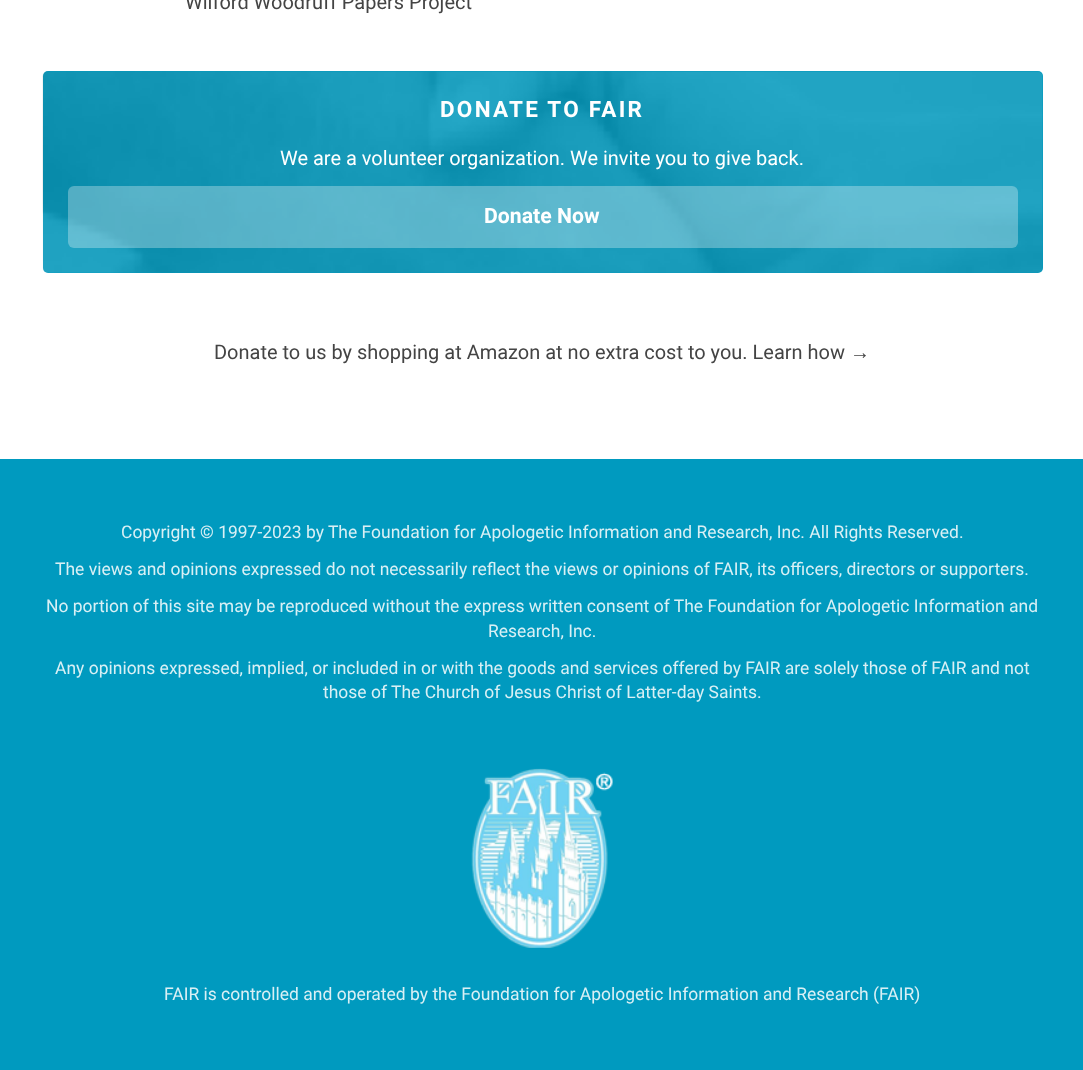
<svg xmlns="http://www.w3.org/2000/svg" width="1083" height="1070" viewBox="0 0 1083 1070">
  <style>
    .t1 { font: 20px Roboto; fill: #444; }
    .t2 { font: bold 22.5px Roboto; letter-spacing: 2.25px; fill: #fff; }
    .t3 { font: 20px Roboto; fill: #fff; }
    .t4 { font: bold 21.25px Roboto; fill: #fff; }
    .t5 { font: 20px Liberation Sans; fill: #444; }
    .t6 { font: 17.5px Roboto; fill: #d9f0f5; }
  </style>
  <rect width="100%" height="100%" fill="#fff"/>
  <text x="185" y="9" class="t1">Wilford Woodruff Papers Project</text>
  <rect x="43" y="71" width="1000" height="202" rx="5" fill="#009abf"/>
  <image x="42" y="71" width="1001" height="202" href="images/1.png"/>
  <text x="440" y="117" class="t2">DONATE TO FAIR</text>
  <text x="280" y="165" class="t3">We are a volunteer organization. We invite you to give back.</text>
  <rect x="68" y="186" width="950" height="62" rx="6" fill="#ffffff4d"/>
  <text x="484" y="223" class="t4">Donate Now</text>
  <text x="214" y="359" class="t1">Donate to us by shopping at Amazon at no extra cost to you. Learn how</text>
  <text x="850" y="359" class="t5">→</text>
  <rect x="0" y="459" width="1083" height="611" fill="#009abf"/>
  <text x="121" y="538" class="t6">Copyright © 1997-2023 by The Foundation for Apologetic Information and Research, Inc. All Rights Reserved.</text>
  <text x="55" y="575" class="t6">The views and opinions expressed do not necessarily reflect the views or opinions of FAIR, its officers, directors or supporters.</text>
  <text x="46" y="612" class="t6">No portion of this site may be reproduced without the express written consent of The Foundation for Apologetic Information and</text>
  <text x="488" y="637" class="t6">Research, Inc.</text>
  <text x="55" y="674" class="t6">Any opinions expressed, implied, or included in or with the goods and services offered by FAIR are solely those of FAIR and not</text>
  <text x="323" y="698" class="t6">those of The Church of Jesus Christ of Latter-day Saints.</text>
  <image x="471" y="768" width="142" height="180" href="images/2.png"/>
  <text x="164" y="1000" class="t6">FAIR is controlled and operated by the Foundation for Apologetic Information and Research (FAIR)</text>
</svg>
